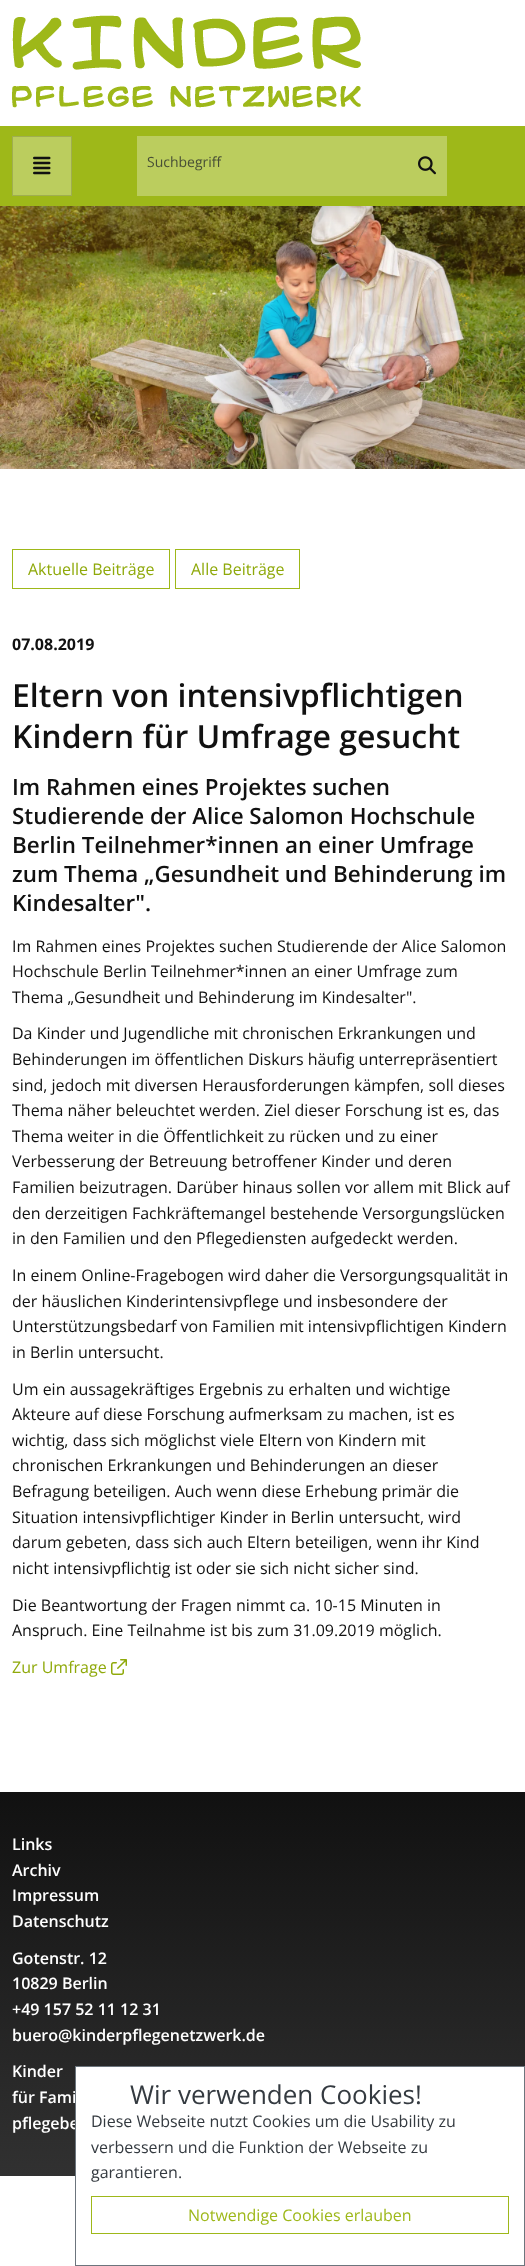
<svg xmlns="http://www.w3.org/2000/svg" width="525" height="2266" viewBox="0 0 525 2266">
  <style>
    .t1 { font: 14px Open Sans; fill: #484f36; }
    .t2 { font: 16px Open Sans; fill: #8fa90a; }
    .t3 { font: bold 16px Open Sans; fill: #111; }
    .t4 { font: 600 32px Open Sans; fill: #111; }
    .t5 { font: 600 22.4px Open Sans; fill: #111; }
    .t6 { font: 16px Open Sans; fill: #111; }
    .t7 { font: 600 16px Open Sans; fill: #fff; }
    .t8 { font: 26px Open Sans; fill: #343a40; }
    .t9 { font: 16px Open Sans; fill: #343a40; }
    .t10 { font: 16px Open Sans; fill: #9eb819; }
  </style>
  <defs>
    <linearGradient id="g1" gradientUnits="userSpaceOnUse" x1="263" y1="1792" x2="263" y2="2176"><stop offset="0" stop-color="#111"/><stop offset="1" stop-color="#313131"/></linearGradient>
  </defs>
  <rect width="100%" height="100%" fill="#fff"/>
  <image x="12" y="15" width="349" height="93" href="images/1.png"/>
  <image x="0" y="206" width="525" height="263" href="images/4.png"/>
  <rect x="25" y="159" width="475" height="30" fill="#333" filter="blur(14px)"/>
  <rect x="0" y="126" width="525" height="80" fill="#9eb819"/>
  <rect x="12.5" y="136.5" width="59" height="59" fill="#bbcd5e" stroke="#9fae50"/>
  <image x="33" y="156" width="18" height="19" href="images/2.png"/>
  <rect x="137" y="136" width="310" height="60" fill="#bbcd5e"/>
  <text x="147" y="167" class="t1">Suchbegriff</text>
  <image x="418" y="156" width="18" height="19" href="images/3.png"/>
  <rect x="12.5" y="549.5" width="157" height="39" fill="none" stroke="#9eb819"/>
  <text x="28" y="575" class="t2">Aktuelle Beiträge</text>
  <rect x="175.5" y="549.5" width="124" height="39" fill="none" stroke="#9eb819"/>
  <text x="191" y="575" class="t2">Alle Beiträge</text>
  <text x="12" y="650" class="t3">07.08.2019</text>
  <text x="12" y="707" class="t4">Eltern von intensivpflichtigen</text>
  <text x="12" y="748" class="t4">Kindern für Umfrage gesucht</text>
  <text x="12" y="795" class="t5">Im Rahmen eines Projektes suchen</text>
  <text x="12" y="824" class="t5">Studierende der Alice Salomon Hochschule</text>
  <text x="12" y="853" class="t5">Berlin Teilnehmer*innen an einer Umfrage</text>
  <text x="12" y="882" class="t5">zum Thema „Gesundheit und Behinderung im</text>
  <text x="12" y="911" class="t5">Kindesalter".</text>
  <text x="12" y="952" class="t6">Im Rahmen eines Projektes suchen Studierende der Alice Salomon</text>
  <text x="12" y="977" class="t6">Hochschule Berlin Teilnehmer*innen an einer Umfrage zum</text>
  <text x="12" y="1003" class="t6">Thema „Gesundheit und Behinderung im Kindesalter".</text>
  <text x="12" y="1039" class="t6">Da Kinder und Jugendliche mit chronischen Erkrankungen und</text>
  <text x="12" y="1065" class="t6">Behinderungen im öffentlichen Diskurs häufig unterrepräsentiert</text>
  <text x="12" y="1091" class="t6">sind, jedoch mit diversen Herausforderungen kämpfen, soll dieses</text>
  <text x="12" y="1116" class="t6">Thema näher beleuchtet werden. Ziel dieser Forschung ist es, das</text>
  <text x="12" y="1142" class="t6">Thema weiter in die Öffentlichkeit zu rücken und zu einer</text>
  <text x="12" y="1167" class="t6">Verbesserung der Betreuung betroffener Kinder und deren</text>
  <text x="12" y="1193" class="t6">Familien beizutragen. Darüber hinaus sollen vor allem mit Blick auf</text>
  <text x="12" y="1219" class="t6">den derzeitigen Fachkräftemangel bestehende Versorgungslücken</text>
  <text x="12" y="1244" class="t6">in den Familien und den Pflegediensten aufgedeckt werden.</text>
  <text x="12" y="1281" class="t6">In einem Online-Fragebogen wird daher die Versorgungsqualität in</text>
  <text x="12" y="1307" class="t6">der häuslichen Kinderintensivpflege und insbesondere der</text>
  <text x="12" y="1332" class="t6">Unterstützungsbedarf von Familien mit intensivpflichtigen Kindern</text>
  <text x="12" y="1358" class="t6">in Berlin untersucht.</text>
  <text x="12" y="1395" class="t6">Um ein aussagekräftiges Ergebnis zu erhalten und wichtige</text>
  <text x="12" y="1420" class="t6">Akteure auf diese Forschung aufmerksam zu machen, ist es</text>
  <text x="12" y="1446" class="t6">wichtig, dass sich möglichst viele Eltern von Kindern mit</text>
  <text x="12" y="1471" class="t6">chronischen Erkrankungen und Behinderungen an dieser</text>
  <text x="12" y="1497" class="t6">Befragung beteiligen. Auch wenn diese Erhebung primär die</text>
  <text x="12" y="1523" class="t6">Situation intensivpflichtiger Kinder in Berlin untersucht, wird</text>
  <text x="12" y="1548" class="t6">darum gebeten, dass sich auch Eltern beteiligen, wenn ihr Kind</text>
  <text x="12" y="1574" class="t6">nicht intensivpflichtig ist oder sie sich nicht sicher sind.</text>
  <text x="12" y="1611" class="t6">Die Beantwortung der Fragen nimmt ca. 10-15 Minuten in</text>
  <text x="12" y="1636" class="t6">Anspruch. Eine Teilnahme ist bis zum 31.09.2019 möglich.</text>
  <text x="12" y="1673" class="t2">Zur Umfrage</text>
  <image x="111" y="1659" width="16" height="16" href="images/5.png"/>
  <rect x="0" y="1792" width="525" height="384" fill="url(#g1)"/>
  <text x="12" y="1850" class="t7">Links</text>
  <text x="12" y="1876" class="t7">Archiv</text>
  <text x="12" y="1901" class="t7">Impressum</text>
  <text x="12" y="1927" class="t7">Datenschutz</text>
  <text x="12" y="1964" class="t7">Gotenstr. 12</text>
  <text x="12" y="1989" class="t7">10829 Berlin</text>
  <text x="12" y="2015" class="t7">+49 157 52 11 12 31</text>
  <text x="12" y="2041" class="t7">buero@kinderpflegenetzwerk.de</text>
  <text x="12" y="2077" class="t7">Kinder</text>
  <text x="12" y="2103" class="t7">für Fami</text>
  <text x="12" y="2129" class="t7">pflegebe</text>
  <rect x="76" y="2067" width="448" height="109" fill="#fff"/>
  <rect x="75.5" y="2066.5" width="449" height="199" fill="none" stroke="#6c757d"/>
  <text x="130" y="2104" class="t8">Wir verwenden Cookies!</text>
  <text x="91" y="2127" class="t9">Diese Webseite nutzt Cookies um die Usability zu</text>
  <text x="91" y="2153" class="t9">verbessern und die Funktion der Webseite zu</text>
  <text x="91" y="2178" class="t9">garantieren.</text>
  <rect x="91.5" y="2196.5" width="417" height="37" fill="none" stroke="#9eb819"/>
  <text x="188" y="2221" class="t10">Notwendige Cookies erlauben</text>
</svg>
